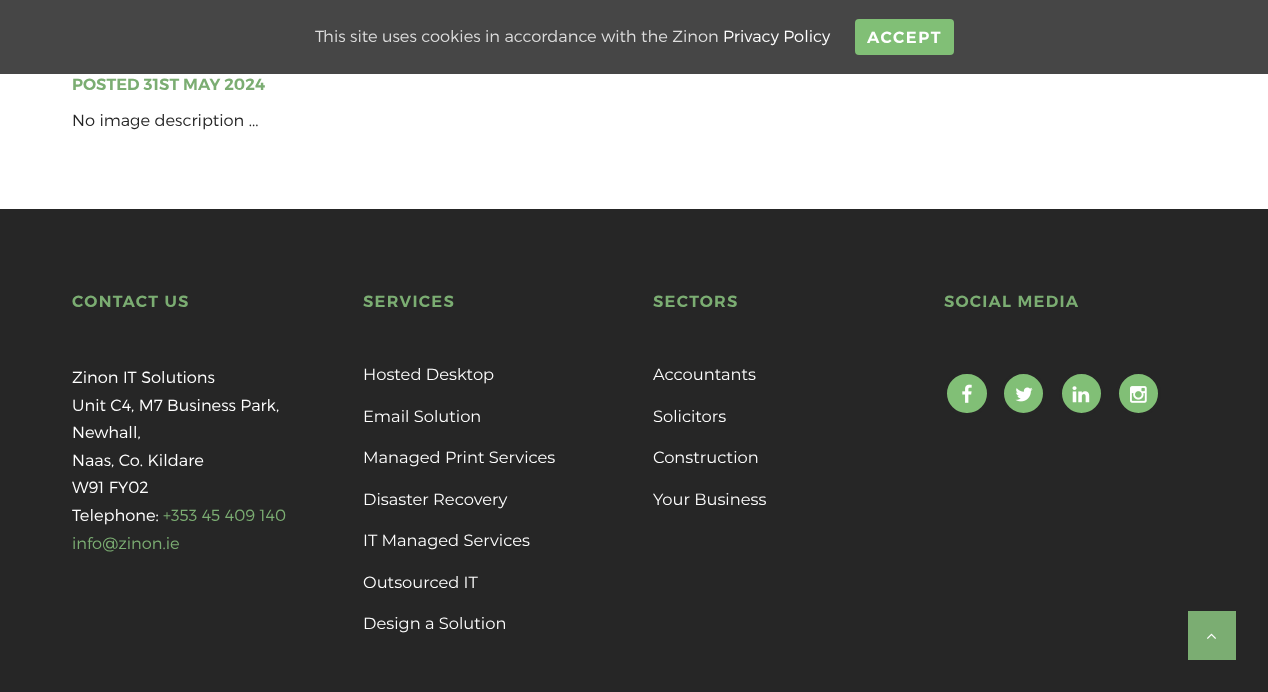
<svg xmlns="http://www.w3.org/2000/svg" width="1268" height="692" viewBox="0 0 1268 692">
  <style>
    .t1 { font: 300 16.25px Montserrat; fill: #ddd; }
    .t2 { font: 300 16.25px Montserrat; fill: #fff; }
    .t3 { font: 600 16.25px Montserrat; letter-spacing: 1.5px; fill: #fff; }
    .t4 { font: 600 16.25px Montserrat; fill: #7bad72; }
    .t5 { font: 300 16.25px Montserrat; fill: #262626; }
    .t6 { font: 600 16.25px Montserrat; letter-spacing: 1.25px; fill: #7bad72; }
    .t7 { font: 300 16.25px Montserrat; fill: #7bad72; }
    .t8 { font: 16.25px Montserrat; fill: #fff; }
  </style>
  <rect width="100%" height="100%" fill="#fff"/>
  <rect x="0" y="0" width="1268" height="74" fill="#464646"/>
  <text x="315" y="42" class="t1">This site uses cookies in accordance with the Zinon</text>
  <text x="723" y="42" class="t2">Privacy Policy</text>
  <rect x="855" y="19" width="99" height="36" rx="4" fill="#81bf76"/>
  <text x="867" y="43" class="t3">ACCEPT</text>
  <text x="72" y="90" class="t4">POSTED 31ST MAY 2024</text>
  <text x="72" y="126" class="t5">No image description ...</text>
  <rect x="0" y="209" width="1268" height="483" fill="#262626"/>
  <text x="72" y="307" class="t6">CONTACT US</text>
  <text x="72" y="383" class="t2">Zinon IT Solutions</text>
  <text x="72" y="411" class="t2">Unit C4, M7 Business Park,</text>
  <text x="72" y="438" class="t2">Newhall,</text>
  <text x="72" y="466" class="t2">Naas, Co. Kildare</text>
  <text x="72" y="493" class="t2">W91 FY02</text>
  <text x="72" y="521" class="t2">Telephone:</text>
  <text x="163" y="521" class="t7">+353 45 409 140</text>
  <text x="72" y="549" class="t7">info@zinon.ie</text>
  <text x="363" y="307" class="t6">SERVICES</text>
  <text x="363" y="380" class="t8">Hosted Desktop</text>
  <text x="363" y="422" class="t8">Email Solution</text>
  <text x="363" y="463" class="t8">Managed Print Services</text>
  <text x="363" y="505" class="t8">Disaster Recovery</text>
  <text x="363" y="546" class="t8">IT Managed Services</text>
  <text x="363" y="588" class="t8">Outsourced IT</text>
  <text x="363" y="629" class="t8">Design a Solution</text>
  <text x="653" y="307" class="t6">SECTORS</text>
  <text x="653" y="380" class="t8">Accountants</text>
  <text x="653" y="422" class="t8">Solicitors</text>
  <text x="653" y="463" class="t8">Construction</text>
  <text x="653" y="505" class="t8">Your Business</text>
  <text x="944" y="307" class="t6">SOCIAL MEDIA</text>
  <rect x="945.5" y="372.5" width="43" height="42" rx="21" fill="#81bf76" stroke="#262626" stroke-width="3"/>
  <image x="962" y="384" width="10" height="19" href="images/1.png"/>
  <circle cx="1023.5" cy="393.5" r="21" fill="#81bf76" stroke="#262626" stroke-width="3"/>
  <image x="1015" y="387" width="18" height="15" href="images/2.png"/>
  <circle cx="1081.5" cy="393.5" r="21" fill="#81bf76" stroke="#262626" stroke-width="3"/>
  <image x="1072" y="386" width="18" height="17" href="images/3.png"/>
  <circle cx="1138.5" cy="393.5" r="21" fill="#81bf76" stroke="#262626" stroke-width="3"/>
  <image x="1130" y="386" width="17" height="17" href="images/4.png"/>
  <rect x="1188" y="611" width="48" height="49" fill="#7bad72"/>
  <image x="1207" y="633" width="9" height="6" href="images/5.png"/>
</svg>
